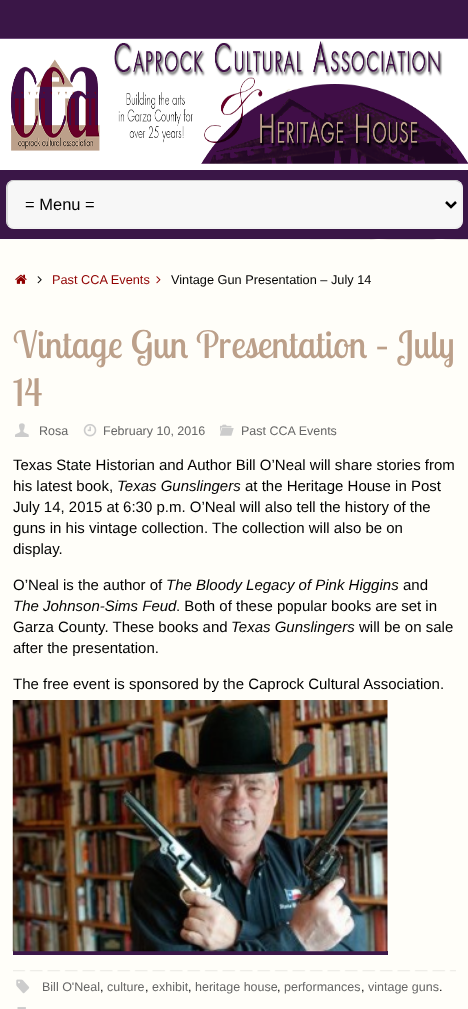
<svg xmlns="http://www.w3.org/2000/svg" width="468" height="1009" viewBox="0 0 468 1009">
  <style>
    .t1 { font: 16.5px Liberation Sans; fill: #000; }
    .t2 { font: 12.75px Liberation Sans; fill: #900000; }
    .t3 { font: 12.75px Liberation Sans; fill: #000; }
    .t4 { font: 37.5px Lobster Two; fill: #bca08a; }
    .t5 { font: 12.5px Liberation Sans; fill: #666; }
    .t6 { font: 15px Liberation Sans; fill: #000; }
    .t7 { font: italic 15px Liberation Sans; fill: #000; }
    .t8 { font: 12.5px Liberation Sans; fill: #000; }
  </style>
  <rect width="100%" height="100%" fill="#fff"/>
  <image x="0" y="239" width="468" height="1" href="images/1.png"/>
  <rect x="0" y="0" width="468" height="38" fill="#3a1647"/>
  <rect x="0" y="38" width="468" height="1" fill="#623e6f"/>
  <image x="0" y="38" width="468" height="126" href="images/2.png"/>
  <rect x="0" y="170" width="468" height="69" fill="#3a1647"/>
  <rect x="6" y="180" width="457" height="49" rx="8" fill="#f7f7f7"/>
  <path d="M460 182.5C461 184 462 185.5 462 187.5V221C462 223 461 225 460 226C458.5 227.5 457 228 455 228H14C12 228 10 227.5 9 226" fill="none" stroke="#eee" stroke-width="1.2"/>
  <path d="M9 226C7.5 225 7 223 7 221V187.5C7 185.5 7.5 184 9 182.5C10 181.5 12 180.5 13.5 180.5H455C457 180.5 458.5 181.5 460 182.5" fill="none" stroke="#ccc" stroke-width="1.2"/>
  <path d="M446 202L451 207L456 202" fill="none" stroke="#000" stroke-width="2.5"/>
  <text x="25" y="210" class="t1">= Menu =</text>
  <rect x="0" y="240" width="468" height="769" fill="#fffef9"/>
  <image x="15" y="274" width="12" height="10" href="images/3.png"/>
  <image x="37" y="276" width="5" height="8" href="images/4.png"/>
  <text x="52" y="284" class="t2">Past CCA Events</text>
  <image x="156" y="276" width="5" height="8" href="images/5.png"/>
  <text x="171" y="284" class="t3">Vintage Gun Presentation – July 14</text>
  <text x="13" y="358" class="t4">Vintage Gun Presentation – July</text>
  <text x="13" y="406" class="t4">14</text>
  <image x="15" y="423" width="14" height="14" href="images/6.png"/>
  <text x="39" y="435" class="t5">Rosa</text>
  <image x="83" y="424" width="14" height="13" href="images/7.png"/>
  <text x="103" y="435" class="t5">February 10, 2016</text>
  <image x="220" y="424" width="14" height="12" href="images/8.png"/>
  <text x="241" y="435" class="t5">Past CCA Events</text>
  <text x="13" y="470" class="t6">Texas State Historian and Author Bill O’Neal will share stories from</text>
  <text x="13" y="491" class="t6">his latest book,</text>
  <text x="117" y="491" class="t7">Texas Gunslingers</text>
  <text x="245" y="491" class="t6">at the Heritage House in Post</text>
  <text x="13" y="512" class="t6">July 14, 2015 at 6:30 p.m. O’Neal will also tell the history of the</text>
  <text x="13" y="533" class="t6">guns in his vintage collection. The collection will also be on</text>
  <text x="13" y="554" class="t6">display.</text>
  <text x="13" y="590" class="t6">O’Neal is the author of</text>
  <text x="166" y="590" class="t7">The Bloody Legacy of Pink Higgins</text>
  <text x="403" y="590" class="t6">and</text>
  <text x="13" y="611" class="t7">The Johnson-Sims Feud</text>
  <text x="176" y="611" class="t6">. Both of these popular books are set in</text>
  <text x="13" y="632" class="t6">Garza County. These books and</text>
  <text x="231" y="632" class="t7">Texas Gunslingers</text>
  <text x="359" y="632" class="t6">will be on sale</text>
  <text x="13" y="653" class="t6">after the presentation.</text>
  <text x="13" y="689" class="t6">The free event is sponsored by the Caprock Cultural Association.</text>
  <rect x="13" y="951" width="375" height="4" fill="#3c1849"/>
  <image x="12" y="700" width="376" height="252" href="images/9.png"/>
  <image x="13" y="970" width="443" height="2" href="images/10.png"/>
  <image x="16" y="979" width="14" height="15" href="images/11.png"/>
  <text x="42" y="991" class="t5">Bill O'Neal</text>
  <text x="100" y="991" class="t8">,</text>
  <text x="107" y="991" class="t5">culture</text>
  <text x="145" y="991" class="t8">,</text>
  <text x="152" y="991" class="t5">exhibit</text>
  <text x="188" y="991" class="t8">,</text>
  <text x="195" y="991" class="t5">heritage house</text>
  <text x="277" y="991" class="t8">,</text>
  <text x="284" y="991" class="t5">performances</text>
  <text x="361" y="991" class="t8">,</text>
  <text x="368" y="991" class="t5">vintage guns</text>
  <text x="439" y="991" class="t8">.</text>
  <image x="17" y="1007" width="9" height="2" href="images/12.png"/>
</svg>
